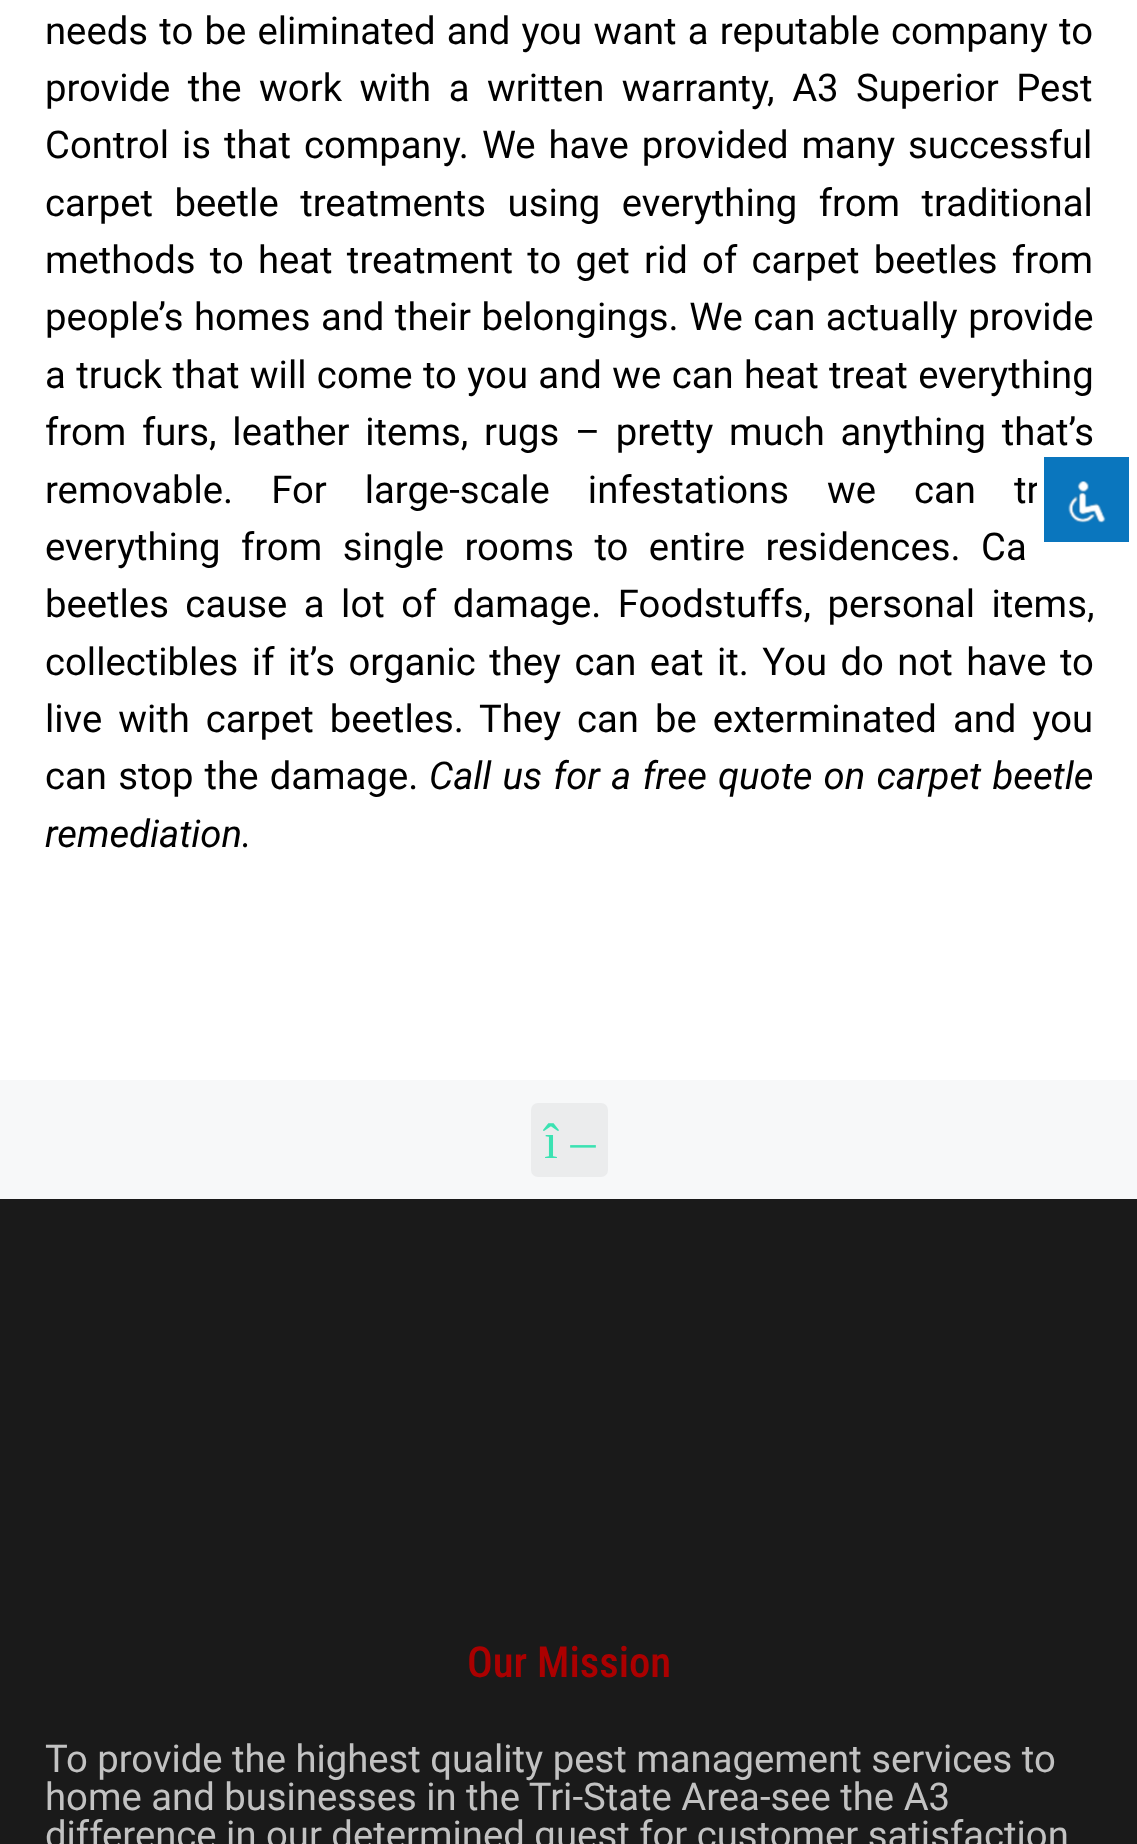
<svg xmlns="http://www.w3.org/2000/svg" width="1137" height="1844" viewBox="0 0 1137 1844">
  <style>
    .t1 { font: 38.25px Roboto; fill: #000; }
    .t2 { font: italic 38.25px Roboto; fill: #000; }
    .t3 { font: 50px Liberation Serif; fill: #3be2b2; }
    .t4 { font: 500 42.75px Roboto Condensed; fill: #ab0000; }
    .t5 { font: 38.25px Roboto; fill: #c2c2c2; }
  </style>
  <rect width="100%" height="100%" fill="#f7f8f9"/>
  <rect x="0" y="0" width="1137" height="1080" fill="#fff"/>
  <text x="45" y="44" word-spacing="1.75" class="t1">needs to be eliminated and you want a reputable company to</text>
  <text x="45" y="101" word-spacing="8" class="t1">provide the work with a written warranty, A3 Superior Pest</text>
  <text x="45" y="158" word-spacing="3.5" class="t1">Control is that company. We have provided many successful</text>
  <text x="45" y="216" word-spacing="12" class="t1">carpet beetle treatments using everything from traditional</text>
  <text x="45" y="273" word-spacing="4.75" class="t1">methods to heat treatment to get rid of carpet beetles from</text>
  <text x="45" y="330" word-spacing="1" class="t1">people’s homes and their belongings. We can actually provide</text>
  <text x="45" y="388" word-spacing="0.9" class="t1">a truck that will come to you and we can heat treat everything</text>
  <text x="45" y="445" word-spacing="6.25" class="t1">from furs, leather items, rugs – pretty much anything that’s</text>
  <text x="45" y="503" word-spacing="28.5" class="t1">removable. For large-scale infestations we can tr</text>
  <text x="45" y="560" word-spacing="11" class="t1">everything from single rooms to entire residences. Ca</text>
  <text x="45" y="617" word-spacing="7" class="t1">beetles cause a lot of damage. Foodstuffs, personal items,</text>
  <text x="45" y="675" word-spacing="4" class="t1">collectibles if it’s organic they can eat it. You do not have to</text>
  <text x="45" y="732" word-spacing="6.5" class="t1">live with carpet beetles. They can be exterminated and you</text>
  <text x="45" y="789" word-spacing="1.75" class="t1">can stop the damage.</text>
  <text x="429" y="789" word-spacing="1.75" class="t2">Call us for a free quote on carpet beetle</text>
  <text x="45" y="847" class="t2">remediation.</text>
  <rect x="531" y="1103" width="77" height="74" rx="7" fill="#ebeced"/>
  <text x="544" y="1158" class="t3">î –</text>
  <rect x="1040.5" y="453.5" width="92" height="92" rx="1.5" fill="#0a76be" stroke="#fff" stroke-width="7"/>
  <image x="1068" y="481" width="38" height="42" href="images/1.png"/>
  <rect x="0" y="1199" width="1137" height="645" fill="#1a1a1a"/>
  <text x="467" y="1677" class="t4">Our Mission</text>
  <text x="45" y="1772" class="t5">To provide the highest quality pest management services to</text>
  <text x="45" y="1810" class="t5">home and businesses in the Tri-State Area-see the A3</text>
  <text x="45" y="1848" class="t5">difference in our determined quest for customer satisfaction</text>
</svg>
